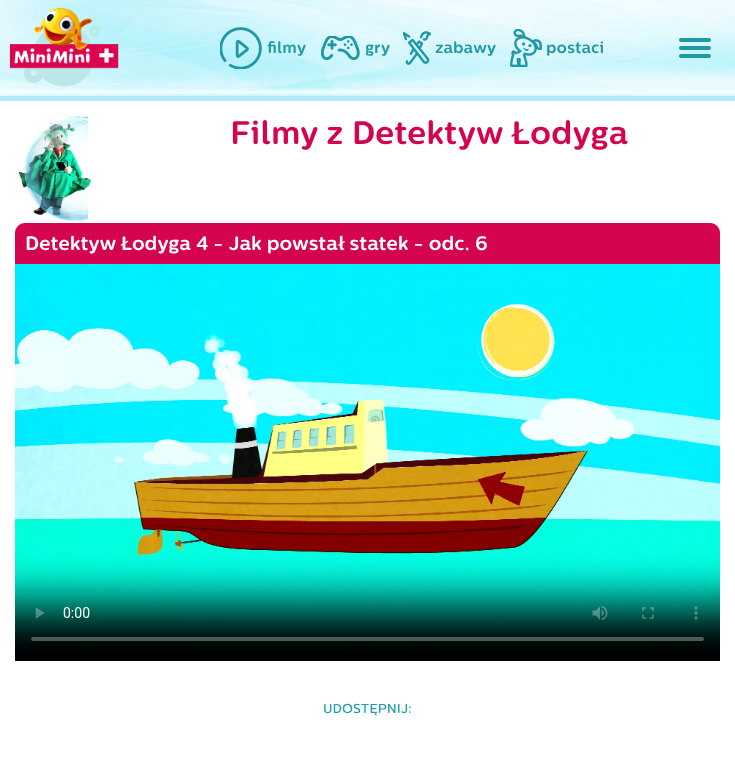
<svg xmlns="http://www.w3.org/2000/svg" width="735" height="757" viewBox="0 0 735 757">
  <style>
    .t1 { font: bold 16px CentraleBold; fill: #1f99a5; }
    .t2 { font: bold 32.5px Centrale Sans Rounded; fill: #d40451; }
    .t3 { font: bold 19.5px Centrale Sans Rounded; fill: #fff; }
    .t4 { font: 500 13px Centrale Sans Rounded; fill: #1fa0ac; }
  </style>
  <rect width="100%" height="100%" fill="#b4e8fe"/>
  <image x="0" y="0" width="735" height="96" href="images/1.png"/>
  <image x="9" y="7" width="110" height="80" href="images/2.png"/>
  <image x="220" y="27" width="42" height="42" href="images/3.png"/>
  <text x="267" y="53" class="t1">filmy</text>
  <image x="321" y="36" width="39" height="24" href="images/4.png"/>
  <text x="365" y="53" class="t1">gry</text>
  <image x="403" y="31" width="28" height="34" href="images/5.png"/>
  <text x="435" y="53" class="t1">zabawy</text>
  <image x="510" y="29" width="32" height="38" href="images/6.png"/>
  <text x="546" y="53" class="t1">postaci</text>
  <rect x="679" y="38" width="32" height="4" rx="2" fill="#1f99a5"/>
  <rect x="679" y="46" width="32" height="4" rx="2" fill="#1f99a5"/>
  <rect x="679" y="54" width="32" height="4" rx="2" fill="#1f99a5"/>
  <rect x="-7.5" y="108.5" width="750" height="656" fill="none" stroke="#fff" stroke-width="15"/>
  <rect x="0" y="116" width="735" height="641" fill="#fff"/>
  <image x="18" y="123" width="73" height="93" href="images/8.png"/>
  <image x="24" y="116" width="64" height="106" href="images/7.png"/>
  <text x="230" y="144" class="t2">Filmy z Detektyw Łodyga</text>
  <path d="M25 223H710C715.5 223 720 227.5 720 233V264H15V233C15 227.5 19.5 223 25 223Z" fill="#d40451"/>
  <text x="25" y="250" class="t3">Detektyw Łodyga 4 - Jak powstał statek - odc. 6</text>
  <image x="15" y="264" width="705" height="397" href="images/9.png"/>
  <text x="323" y="713" class="t4">UDOSTĘPNIJ:</text>
</svg>
